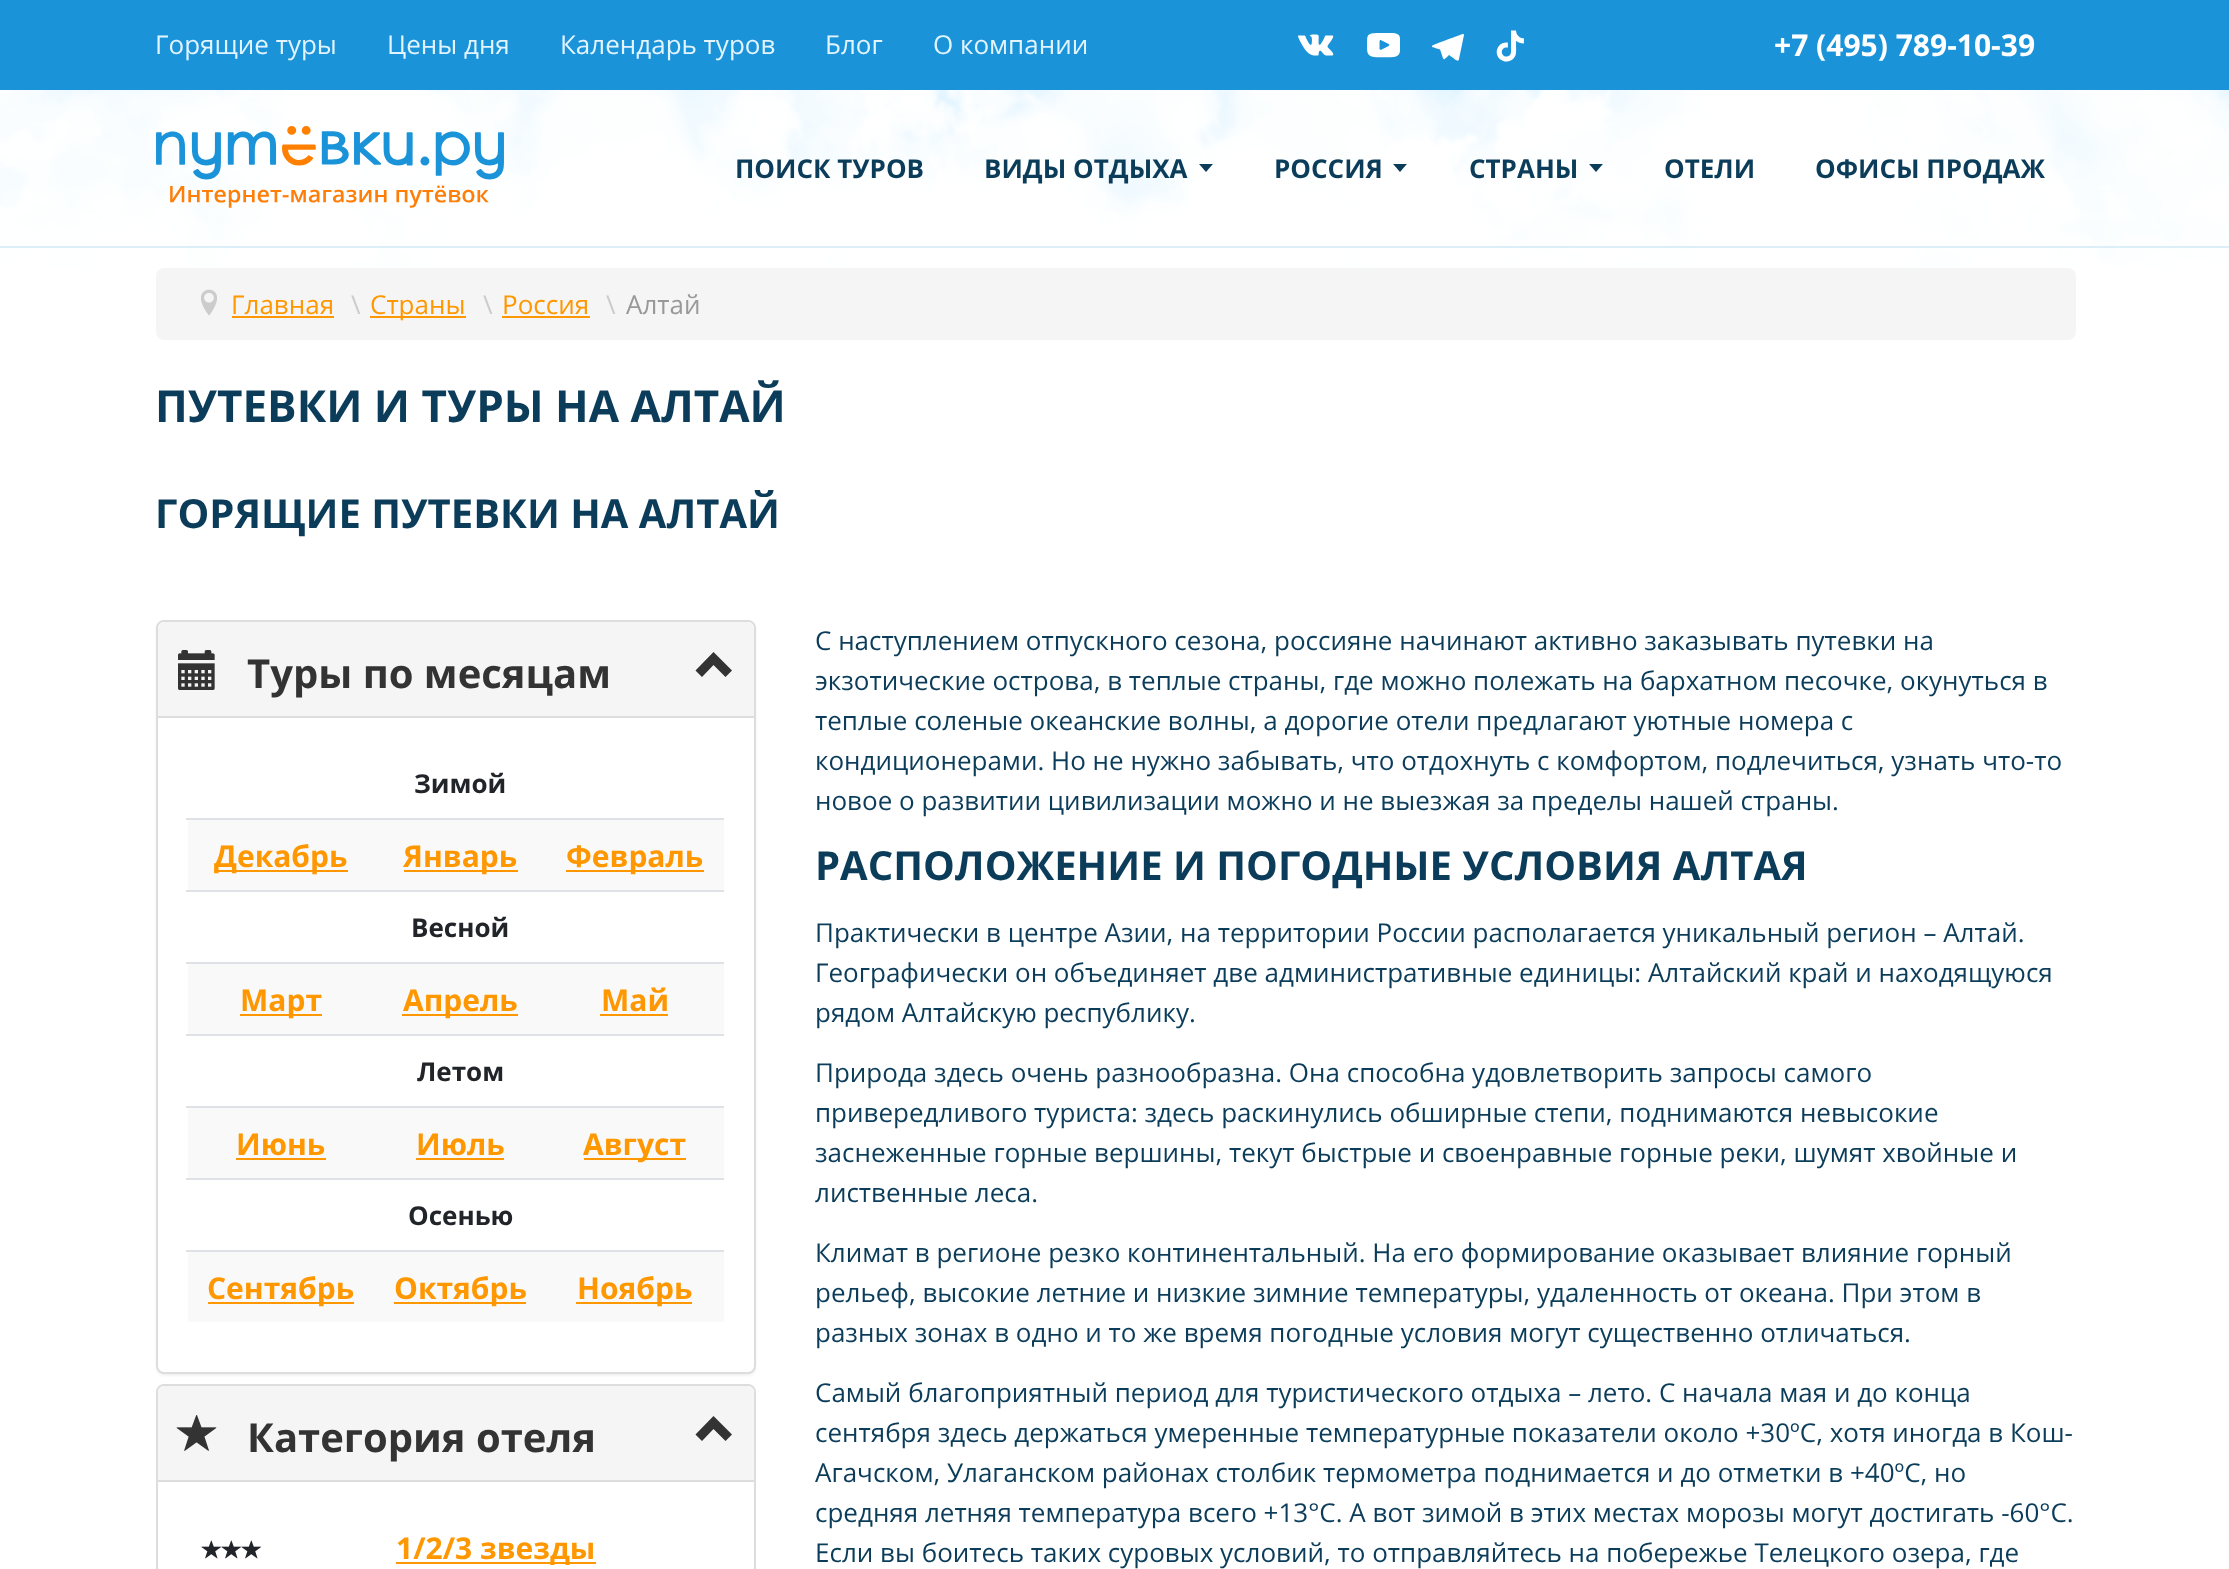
<svg xmlns="http://www.w3.org/2000/svg" width="2229" height="1569" viewBox="0 0 2229 1569">
  <style>
    .t1 { font: 26px Open Sans; fill: #e1f4ff; }
    .t2 { font: bold 30px Open Sans; fill: #fff; }
    .t3 { font: bold 26px Open Sans; fill: #0b3c59; }
    .t4 { font: 26px Open Sans; fill: #ff9700; }
    .t5 { font: 26px Open Sans; fill: #ccc; }
    .t6 { font: 26px Open Sans; fill: #999; }
    .t7 { font: bold 44px Open Sans; fill: #0b3c59; }
    .t8 { font: bold 40px Open Sans; fill: #0b3c59; }
    .t9 { font: bold 40px Open Sans; fill: #333; }
    .t10 { font: bold 26px Open Sans; fill: #212529; }
    .t11 { font: bold 30px Open Sans; fill: #ff9700; }
    .t12 { font: 26px Open Sans; fill: #0b3c59; }
  </style>
  <rect width="100%" height="100%" fill="#fff"/>
  <rect x="0" y="0" width="2229" height="90" fill="#1b93d9"/>
  <text x="155" y="54" class="t1">Горящие туры</text>
  <text x="387" y="54" class="t1">Цены дня</text>
  <text x="560" y="54" class="t1">Календарь туров</text>
  <text x="825" y="54" class="t1">Блог</text>
  <text x="933" y="54" class="t1">О компании</text>
  <image x="1298" y="34" width="36" height="22" href="images/1.png"/>
  <image x="1367" y="33" width="33" height="25" href="images/2.png"/>
  <image x="1432" y="34" width="32" height="27" href="images/3.png"/>
  <image x="1496" y="30" width="28" height="32" href="images/4.png"/>
  <text x="1774" y="56" class="t2">+7 (495) 789-10-39</text>
  <rect x="0" y="90" width="2229" height="178" fill="#e1f4ff"/>
  <image x="0" y="90" width="2229" height="178" href="images/9.png"/>
  <rect x="0" y="246" width="2229" height="2" fill="#dceef8"/>
  <image x="156" y="126" width="348" height="82" href="images/5.png"/>
  <text x="735" y="178" class="t3">ПОИСК ТУРОВ</text>
  <text x="984" y="178" class="t3">ВИДЫ ОТДЫХА</text>
  <image x="1199" y="164" width="14" height="8" href="images/6.png"/>
  <text x="1274" y="178" class="t3">РОССИЯ</text>
  <image x="1393" y="164" width="14" height="8" href="images/7.png"/>
  <text x="1469" y="178" class="t3">СТРАНЫ</text>
  <image x="1589" y="164" width="14" height="8" href="images/8.png"/>
  <text x="1664" y="178" class="t3">ОТЕЛИ</text>
  <text x="1815" y="178" class="t3">ОФИСЫ ПРОДАЖ</text>
  <rect x="156" y="268" width="1920" height="72" rx="8" fill="#f5f5f5"/>
  <image x="201" y="289" width="16" height="27" href="images/10.png"/>
  <text x="231" y="314" class="t4">Главная</text>
  <rect x="232" y="316" width="102" height="2" fill="#ff9700"/>
  <text x="351" y="314" class="t5">\</text>
  <rect x="370" y="316" width="96" height="2" fill="#ff9700"/>
  <text x="370" y="314" class="t4">Страны</text>
  <text x="483" y="314" class="t5">\</text>
  <text x="502" y="314" class="t4">Россия</text>
  <rect x="502" y="316" width="88" height="2" fill="#ff9700"/>
  <text x="606" y="314" class="t5">\</text>
  <text x="626" y="314" class="t6">Алтай</text>
  <text x="155" y="422" class="t7">ПУТЕВКИ И ТУРЫ НА АЛТАЙ</text>
  <text x="155" y="528" class="t8">ГОРЯЩИЕ ПУТЕВКИ НА АЛТАЙ</text>
  <rect x="156" y="622" width="600" height="754" rx="8" fill="#0000000d" filter="blur(1px)"/>
  <rect x="157" y="621" width="598" height="752" rx="7" fill="#fff" stroke="#ddd" stroke-width="2"/>
  <path d="M164 622H748C751.5 622 754 624.5 754 628V716H158V628C158 624.5 160.5 622 164 622Z" fill="#f5f5f5"/>
  <image x="178" y="650" width="37" height="40" href="images/11.png"/>
  <text x="247" y="688" class="t9">Туры по месяцам</text>
  <path d="M695.5 670.5L713.5 652L732 670.5L725.5 677L713.5 665L702 677Z" fill="#333"/>
  <rect x="158" y="716" width="596" height="2" fill="#ddd"/>
  <text x="414" y="793" class="t10">Зимой</text>
  <rect x="188" y="820" width="536" height="70" fill="#f9f9f9"/>
  <rect x="214" y="870" width="134" height="2" fill="#ff9700"/>
  <text x="214" y="867" class="t11">Декабрь</text>
  <rect x="404" y="870" width="114" height="2" fill="#ff9700"/>
  <text x="403" y="867" class="t11">Январь</text>
  <rect x="186" y="818" width="538" height="2" fill="#dee2e6"/>
  <rect x="566" y="870" width="138" height="2" fill="#ff9700"/>
  <text x="566" y="867" class="t11">Февраль</text>
  <rect x="186" y="890" width="538" height="2" fill="#dee2e6"/>
  <text x="411" y="937" class="t10">Весной</text>
  <rect x="188" y="964" width="536" height="70" fill="#f9f9f9"/>
  <rect x="240" y="1014" width="82" height="2" fill="#ff9700"/>
  <text x="240" y="1011" class="t11">Март</text>
  <rect x="402" y="1014" width="116" height="2" fill="#ff9700"/>
  <text x="403" y="1011" class="t11">Апрель</text>
  <rect x="186" y="962" width="538" height="2" fill="#dee2e6"/>
  <text x="601" y="1011" class="t11">Май</text>
  <rect x="600" y="1014" width="68" height="2" fill="#ff9700"/>
  <rect x="186" y="1034" width="538" height="2" fill="#dee2e6"/>
  <text x="417" y="1081" class="t10">Летом</text>
  <rect x="188" y="1108" width="536" height="70" fill="#f9f9f9"/>
  <text x="236" y="1155" class="t11">Июнь</text>
  <rect x="236" y="1158" width="90" height="2" fill="#ff9700"/>
  <text x="416" y="1155" class="t11">Июль</text>
  <rect x="416" y="1158" width="88" height="2" fill="#ff9700"/>
  <rect x="186" y="1106" width="538" height="2" fill="#dee2e6"/>
  <rect x="584" y="1158" width="102" height="2" fill="#ff9700"/>
  <text x="583" y="1155" class="t11">Август</text>
  <rect x="186" y="1178" width="538" height="2" fill="#dee2e6"/>
  <text x="408" y="1225" class="t10">Осенью</text>
  <rect x="188" y="1252" width="536" height="70" fill="#f9f9f9"/>
  <rect x="208" y="1302" width="146" height="2" fill="#ff9700"/>
  <text x="207" y="1299" class="t11">Сентябрь</text>
  <rect x="394" y="1302" width="132" height="2" fill="#ff9700"/>
  <text x="394" y="1299" class="t11">Октябрь</text>
  <rect x="186" y="1250" width="538" height="2" fill="#dee2e6"/>
  <rect x="576" y="1302" width="116" height="2" fill="#ff9700"/>
  <text x="577" y="1299" class="t11">Ноябрь</text>
  <rect x="157" y="1385" width="598" height="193" rx="7" fill="none" stroke="#ddd" stroke-width="2"/>
  <path d="M164 1386H748C751.5 1386 754 1388.5 754 1392V1480H158V1392C158 1388.5 160.5 1386 164 1386Z" fill="#f5f5f5"/>
  <image x="176" y="1415" width="41" height="36" href="images/12.png"/>
  <text x="247" y="1452" class="t9">Категория отеля</text>
  <path d="M695.5 1434.5L713.5 1416L732 1434.5L725.5 1441L713.5 1429L702 1441Z" fill="#333"/>
  <rect x="158" y="1480" width="596" height="2" fill="#ddd"/>
  <image x="201" y="1540" width="21" height="19" href="images/13.png"/>
  <image x="221" y="1540" width="21" height="19" href="images/14.png"/>
  <image x="241" y="1540" width="21" height="19" href="images/14.png"/>
  <rect x="396" y="1562" width="200" height="2" fill="#ff9700"/>
  <text x="396" y="1559" class="t11">1/2/3 звезды</text>
  <text x="815" y="650" class="t12">С наступлением отпускного сезона, россияне начинают активно заказывать путевки на</text>
  <text x="815" y="690" class="t12">экзотические острова, в теплые страны, где можно полежать на бархатном песочке, окунуться в</text>
  <text x="815" y="730" class="t12">теплые соленые океанские волны, а дорогие отели предлагают уютные номера с</text>
  <text x="815" y="770" class="t12">кондиционерами. Но не нужно забывать, что отдохнуть с комфортом, подлечиться, узнать что-то</text>
  <text x="815" y="810" class="t12">новое о развитии цивилизации можно и не выезжая за пределы нашей страны.</text>
  <text x="815" y="880" class="t8">РАСПОЛОЖЕНИЕ И ПОГОДНЫЕ УСЛОВИЯ АЛТАЯ</text>
  <text x="815" y="942" class="t12">Практически в центре Азии, на территории России располагается уникальный регион – Алтай.</text>
  <text x="815" y="982" class="t12">Географически он объединяет две административные единицы: Алтайский край и находящуюся</text>
  <text x="815" y="1022" class="t12">рядом Алтайскую республику.</text>
  <text x="815" y="1082" class="t12">Природа здесь очень разнообразна. Она способна удовлетворить запросы самого</text>
  <text x="815" y="1122" class="t12">привередливого туриста: здесь раскинулись обширные степи, поднимаются невысокие</text>
  <text x="815" y="1162" class="t12">заснеженные горные вершины, текут быстрые и своенравные горные реки, шумят хвойные и</text>
  <text x="815" y="1202" class="t12">лиственные леса.</text>
  <text x="815" y="1262" class="t12">Климат в регионе резко континентальный. На его формирование оказывает влияние горный</text>
  <text x="815" y="1302" class="t12">рельеф, высокие летние и низкие зимние температуры, удаленность от океана. При этом в</text>
  <text x="815" y="1342" class="t12">разных зонах в одно и то же время погодные условия могут существенно отличаться.</text>
  <text x="815" y="1402" class="t12">Самый благоприятный период для туристического отдыха – лето. С начала мая и до конца</text>
  <text x="815" y="1442" class="t12">сентября здесь держаться умеренные температурные показатели около +30ºС, хотя иногда в Кош-</text>
  <text x="815" y="1482" class="t12">Агачском, Улаганском районах столбик термометра поднимается и до отметки в +40ºС, но</text>
  <text x="815" y="1522" class="t12">средняя летняя температура всего +13°C. А вот зимой в этих местах морозы могут достигать -60°C.</text>
  <text x="815" y="1562" class="t12">Если вы боитесь таких суровых условий, то отправляйтесь на побережье Телецкого озера, где</text>
</svg>
